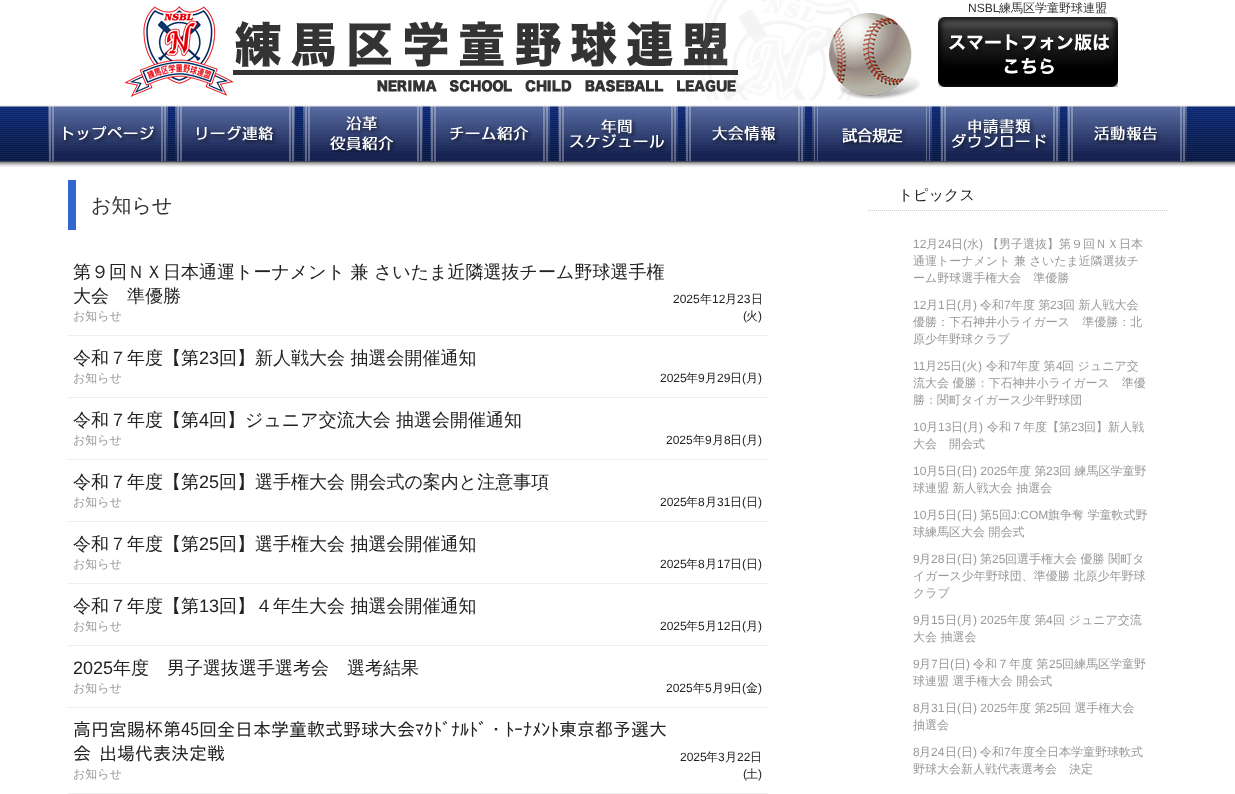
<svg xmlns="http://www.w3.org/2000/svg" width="1235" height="794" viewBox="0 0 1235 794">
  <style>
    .t1 { font: 12px Liberation Sans; fill: #333; }
    .t2 { font: 500 12px WenQuanYi Zen Hei; fill: #333; }
    .t3 { font: 500 20px WenQuanYi Zen Hei; fill: #333; }
    .t4 { font: 500 18px WenQuanYi Zen Hei; fill: #222; }
    .t5 { font: 500 12px WenQuanYi Zen Hei; fill: #999; }
    .t6 { font: 12px Liberation Sans; fill: #222; }
    .t7 { font: 500 12px WenQuanYi Zen Hei; fill: #222; }
    .t8 { font: 18px Liberation Sans; fill: #222; }
    .t9 { font: 18px IPAGothic; fill: #222; }
    .t10 { font: 500 15px WenQuanYi Zen Hei; fill: #222; }
    .t11 { font: 12px Liberation Sans; fill: #999; }
  </style>
  <rect width="100%" height="100%" fill="#fff"/>
  <image x="124" y="0" width="796" height="100" href="images/1.png"/>
  <text x="968" y="12" class="t1">NSBL</text>
  <text x="999" y="12" class="t2">練馬区学童野球連盟</text>
  <image x="938" y="17" width="180" height="70" href="images/2.png"/>
  <image x="0" y="105" width="1235" height="62" href="images/3.png"/>
  <image x="48" y="106" width="120" height="55" href="images/4.png"/>
  <image x="175" y="106" width="120" height="55" href="images/5.png"/>
  <image x="303" y="106" width="120" height="55" href="images/6.png"/>
  <image x="430" y="106" width="120" height="55" href="images/7.png"/>
  <image x="558" y="106" width="120" height="55" href="images/8.png"/>
  <image x="685" y="106" width="120" height="55" href="images/9.png"/>
  <image x="812" y="106" width="120" height="55" href="images/10.png"/>
  <image x="940" y="106" width="120" height="55" href="images/11.png"/>
  <image x="1067" y="106" width="120" height="55" href="images/12.png"/>
  <rect x="68" y="180" width="8" height="50" fill="#36c"/>
  <text x="91" y="212" class="t3">お知らせ</text>
  <rect x="68" y="335" width="700" height="1" fill="#eee"/>
  <text x="73" y="278" class="t4">第９回ＮＸ日本通運トーナメント 兼 さいたま近隣選抜チーム野球選手権</text>
  <text x="73" y="302" class="t4">大会　準優勝</text>
  <text x="73" y="320" class="t5">お知らせ</text>
  <text x="673" y="303" class="t6">2025</text>
  <text x="700" y="303" class="t7">年</text>
  <text x="712" y="303" class="t6">12</text>
  <text x="725" y="303" class="t7">月</text>
  <text x="737" y="303" class="t6">23</text>
  <text x="751" y="303" class="t7">日</text>
  <text x="743" y="320" class="t6">(</text>
  <text x="746" y="320" class="t7">火</text>
  <text x="758" y="320" class="t6">)</text>
  <rect x="68" y="397" width="700" height="1" fill="#eee"/>
  <text x="73" y="364" class="t4">令和７年度【第</text>
  <text x="199" y="364" class="t8">23</text>
  <text x="219" y="364" class="t4">回】新人戦大会 抽選会開催通知</text>
  <text x="73" y="382" class="t5">お知らせ</text>
  <text x="660" y="382" class="t6">2025</text>
  <text x="686" y="382" class="t7">年</text>
  <text x="698" y="382" class="t6">9</text>
  <text x="705" y="382" class="t7">月</text>
  <text x="717" y="382" class="t6">29</text>
  <text x="730" y="382" class="t7">日</text>
  <text x="742" y="382" class="t6">(</text>
  <text x="746" y="382" class="t7">月</text>
  <text x="758" y="382" class="t6">)</text>
  <rect x="68" y="459" width="700" height="1" fill="#eee"/>
  <text x="73" y="426" class="t4">令和７年度【第</text>
  <text x="199" y="426" class="t8">4</text>
  <text x="209" y="426" class="t4">回】ジュニア交流大会 抽選会開催通知</text>
  <text x="73" y="444" class="t5">お知らせ</text>
  <text x="666" y="444" class="t6">2025</text>
  <text x="693" y="444" class="t7">年</text>
  <text x="705" y="444" class="t6">9</text>
  <text x="712" y="444" class="t7">月</text>
  <text x="724" y="444" class="t6">8</text>
  <text x="730" y="444" class="t7">日</text>
  <text x="742" y="444" class="t6">(</text>
  <text x="746" y="444" class="t7">月</text>
  <text x="758" y="444" class="t6">)</text>
  <rect x="68" y="521" width="700" height="1" fill="#eee"/>
  <text x="73" y="488" class="t4">令和７年度【第</text>
  <text x="199" y="488" class="t8">25</text>
  <text x="219" y="488" class="t4">回】選手権大会 開会式の案内と注意事項</text>
  <text x="73" y="506" class="t5">お知らせ</text>
  <text x="660" y="506" class="t6">2025</text>
  <text x="686" y="506" class="t7">年</text>
  <text x="698" y="506" class="t6">8</text>
  <text x="705" y="506" class="t7">月</text>
  <text x="717" y="506" class="t6">31</text>
  <text x="730" y="506" class="t7">日</text>
  <text x="742" y="506" class="t6">(</text>
  <text x="746" y="506" class="t7">日</text>
  <text x="758" y="506" class="t6">)</text>
  <rect x="68" y="583" width="700" height="1" fill="#eee"/>
  <text x="73" y="550" class="t4">令和７年度【第</text>
  <text x="199" y="550" class="t8">25</text>
  <text x="219" y="550" class="t4">回】選手権大会 抽選会開催通知</text>
  <text x="73" y="568" class="t5">お知らせ</text>
  <text x="660" y="568" class="t6">2025</text>
  <text x="686" y="568" class="t7">年</text>
  <text x="698" y="568" class="t6">8</text>
  <text x="705" y="568" class="t7">月</text>
  <text x="717" y="568" class="t6">17</text>
  <text x="730" y="568" class="t7">日</text>
  <text x="742" y="568" class="t6">(</text>
  <text x="746" y="568" class="t7">日</text>
  <text x="758" y="568" class="t6">)</text>
  <rect x="68" y="645" width="700" height="1" fill="#eee"/>
  <text x="73" y="612" class="t4">令和７年度【第</text>
  <text x="199" y="612" class="t8">13</text>
  <text x="219" y="612" class="t4">回】４年生大会 抽選会開催通知</text>
  <text x="73" y="630" class="t5">お知らせ</text>
  <text x="660" y="630" class="t6">2025</text>
  <text x="686" y="630" class="t7">年</text>
  <text x="698" y="630" class="t6">5</text>
  <text x="705" y="630" class="t7">月</text>
  <text x="717" y="630" class="t6">12</text>
  <text x="730" y="630" class="t7">日</text>
  <text x="742" y="630" class="t6">(</text>
  <text x="746" y="630" class="t7">月</text>
  <text x="758" y="630" class="t6">)</text>
  <rect x="68" y="707" width="700" height="1" fill="#eee"/>
  <text x="73" y="674" class="t8">2025</text>
  <text x="113" y="674" class="t4">年度　男子選抜選手選考会　選考結果</text>
  <text x="73" y="692" class="t5">お知らせ</text>
  <text x="666" y="692" class="t6">2025</text>
  <text x="693" y="692" class="t7">年</text>
  <text x="705" y="692" class="t6">5</text>
  <text x="712" y="692" class="t7">月</text>
  <text x="724" y="692" class="t6">9</text>
  <text x="730" y="692" class="t7">日</text>
  <text x="742" y="692" class="t6">(</text>
  <text x="746" y="692" class="t7">金</text>
  <text x="758" y="692" class="t6">)</text>
  <rect x="68" y="793" width="700" height="1" fill="#eee"/>
  <text x="73" y="736" class="t9">高円宮賜杯第45回全日本学童軟式野球大会ﾏｸﾄﾞﾅﾙﾄﾞ・ﾄｰﾅﾒﾝﾄ東京都予選大</text>
  <text x="73" y="760" word-spacing="-1" class="t9">会 出場代表決定戦</text>
  <text x="73" y="778" class="t5">お知らせ</text>
  <text x="680" y="761" class="t6">2025</text>
  <text x="706" y="761" class="t7">年</text>
  <text x="718" y="761" class="t6">3</text>
  <text x="725" y="761" class="t7">月</text>
  <text x="737" y="761" class="t6">22</text>
  <text x="750" y="761" class="t7">日</text>
  <text x="743" y="778" class="t6">(</text>
  <text x="746" y="778" class="t7">土</text>
  <text x="758" y="778" class="t6">)</text>
  <path d="M868 210.5H1168" fill="none" stroke="#ccc" stroke-dasharray="1 1"/>
  <text x="898" y="200" class="t10">トピックス</text>
  <text x="913" y="248" class="t11">12</text>
  <text x="926" y="248" class="t5">月</text>
  <text x="938" y="248" class="t11">24</text>
  <text x="951" y="248" class="t5">日</text>
  <text x="963" y="248" class="t11">(</text>
  <text x="967" y="248" class="t5">水</text>
  <text x="979" y="248" class="t11">)</text>
  <text x="987" y="248" class="t5">【男子選抜】第９回ＮＸ日本</text>
  <text x="913" y="265" class="t5">通運トーナメント 兼 さいたま近隣選抜チ</text>
  <text x="913" y="282" class="t5">ーム野球選手権大会　準優勝</text>
  <text x="913" y="309" class="t11">12</text>
  <text x="926" y="309" class="t5">月</text>
  <text x="938" y="309" class="t11">1</text>
  <text x="945" y="309" class="t5">日</text>
  <text x="957" y="309" class="t11">(</text>
  <text x="961" y="309" class="t5">月</text>
  <text x="973" y="309" class="t11">)</text>
  <text x="980" y="309" class="t5">令和</text>
  <text x="1004" y="309" class="t11">7</text>
  <text x="1011" y="309" class="t5">年度 第</text>
  <text x="1050" y="309" class="t11">23</text>
  <text x="1063" y="309" class="t5">回 新人戦大会</text>
  <text x="913" y="326" class="t5">優勝：下石神井小ライガース　準優勝：北</text>
  <text x="913" y="343" class="t5">原少年野球クラブ</text>
  <text x="913" y="370" class="t11">11</text>
  <text x="925" y="370" class="t5">月</text>
  <text x="937" y="370" class="t11">25</text>
  <text x="950" y="370" class="t5">日</text>
  <text x="962" y="370" class="t11">(</text>
  <text x="966" y="370" class="t5">火</text>
  <text x="978" y="370" class="t11">)</text>
  <text x="986" y="370" class="t5">令和</text>
  <text x="1010" y="370" class="t11">7</text>
  <text x="1016" y="370" class="t5">年度 第</text>
  <text x="1056" y="370" class="t11">4</text>
  <text x="1062" y="370" class="t5">回 ジュニア交</text>
  <text x="913" y="387" class="t5">流大会 優勝：下石神井小ライガース　準優</text>
  <text x="913" y="404" class="t5">勝：関町タイガース少年野球団</text>
  <text x="913" y="431" class="t11">10</text>
  <text x="926" y="431" class="t5">月</text>
  <text x="938" y="431" class="t11">13</text>
  <text x="951" y="431" class="t5">日</text>
  <text x="963" y="431" class="t11">(</text>
  <text x="967" y="431" class="t5">月</text>
  <text x="979" y="431" class="t11">)</text>
  <text x="987" y="431" class="t5">令和７年度【第</text>
  <text x="1071" y="431" class="t11">23</text>
  <text x="1084" y="431" class="t5">回】新人戦</text>
  <text x="913" y="448" class="t5">大会　開会式</text>
  <text x="913" y="475" class="t11">10</text>
  <text x="926" y="475" class="t5">月</text>
  <text x="938" y="475" class="t11">5</text>
  <text x="945" y="475" class="t5">日</text>
  <text x="957" y="475" class="t11">(</text>
  <text x="961" y="475" class="t5">日</text>
  <text x="973" y="475" class="t11">) 2025</text>
  <text x="1007" y="475" class="t5">年度 第</text>
  <text x="1046" y="475" class="t11">23</text>
  <text x="1059" y="475" class="t5">回 練馬区学童野</text>
  <text x="913" y="492" class="t5">球連盟 新人戦大会 抽選会</text>
  <text x="913" y="519" class="t11">10</text>
  <text x="926" y="519" class="t5">月</text>
  <text x="938" y="519" class="t11">5</text>
  <text x="945" y="519" class="t5">日</text>
  <text x="957" y="519" class="t11">(</text>
  <text x="961" y="519" class="t5">日</text>
  <text x="973" y="519" class="t11">)</text>
  <text x="980" y="519" class="t5">第</text>
  <text x="992" y="519" class="t11">5</text>
  <text x="999" y="519" class="t5">回</text>
  <text x="1011" y="519" class="t11">J:COM</text>
  <text x="1048" y="519" class="t5">旗争奪 学童軟式野</text>
  <text x="913" y="536" class="t5">球練馬区大会 開会式</text>
  <text x="913" y="563" class="t11">9</text>
  <text x="919" y="563" class="t5">月</text>
  <text x="931" y="563" class="t11">28</text>
  <text x="945" y="563" class="t5">日</text>
  <text x="957" y="563" class="t11">(</text>
  <text x="961" y="563" class="t5">日</text>
  <text x="973" y="563" class="t11">)</text>
  <text x="980" y="563" class="t5">第</text>
  <text x="992" y="563" class="t11">25</text>
  <text x="1005" y="563" class="t5">回選手権大会 優勝 関町タ</text>
  <text x="913" y="580" class="t5">イガース少年野球団、準優勝 北原少年野球</text>
  <text x="913" y="597" class="t5">クラブ</text>
  <text x="913" y="624" class="t11">9</text>
  <text x="919" y="624" class="t5">月</text>
  <text x="931" y="624" class="t11">15</text>
  <text x="945" y="624" class="t5">日</text>
  <text x="957" y="624" class="t11">(</text>
  <text x="961" y="624" class="t5">月</text>
  <text x="973" y="624" class="t11">) 2025</text>
  <text x="1007" y="624" class="t5">年度 第</text>
  <text x="1046" y="624" class="t11">4</text>
  <text x="1053" y="624" class="t5">回 ジュニア交流</text>
  <text x="913" y="641" class="t5">大会 抽選会</text>
  <text x="913" y="668" class="t11">9</text>
  <text x="919" y="668" class="t5">月</text>
  <text x="931" y="668" class="t11">7</text>
  <text x="938" y="668" class="t5">日</text>
  <text x="950" y="668" class="t11">(</text>
  <text x="954" y="668" class="t5">日</text>
  <text x="966" y="668" class="t11">)</text>
  <text x="973" y="668" class="t5">令和７年度 第</text>
  <text x="1049" y="668" class="t11">25</text>
  <text x="1062" y="668" class="t5">回練馬区学童野</text>
  <text x="913" y="685" class="t5">球連盟 選手権大会 開会式</text>
  <text x="913" y="712" class="t11">8</text>
  <text x="919" y="712" class="t5">月</text>
  <text x="931" y="712" class="t11">31</text>
  <text x="945" y="712" class="t5">日</text>
  <text x="957" y="712" class="t11">(</text>
  <text x="961" y="712" class="t5">日</text>
  <text x="973" y="712" class="t11">) 2025</text>
  <text x="1007" y="712" class="t5">年度 第</text>
  <text x="1046" y="712" class="t11">25</text>
  <text x="1059" y="712" class="t5">回 選手権大会</text>
  <text x="913" y="729" class="t5">抽選会</text>
  <text x="913" y="756" class="t11">8</text>
  <text x="919" y="756" class="t5">月</text>
  <text x="931" y="756" class="t11">24</text>
  <text x="945" y="756" class="t5">日</text>
  <text x="957" y="756" class="t11">(</text>
  <text x="961" y="756" class="t5">日</text>
  <text x="973" y="756" class="t11">)</text>
  <text x="980" y="756" class="t5">令和</text>
  <text x="1004" y="756" class="t11">7</text>
  <text x="1011" y="756" class="t5">年度全日本学童野球軟式</text>
  <text x="913" y="773" class="t5">野球大会新人戦代表選考会　決定</text>
</svg>
